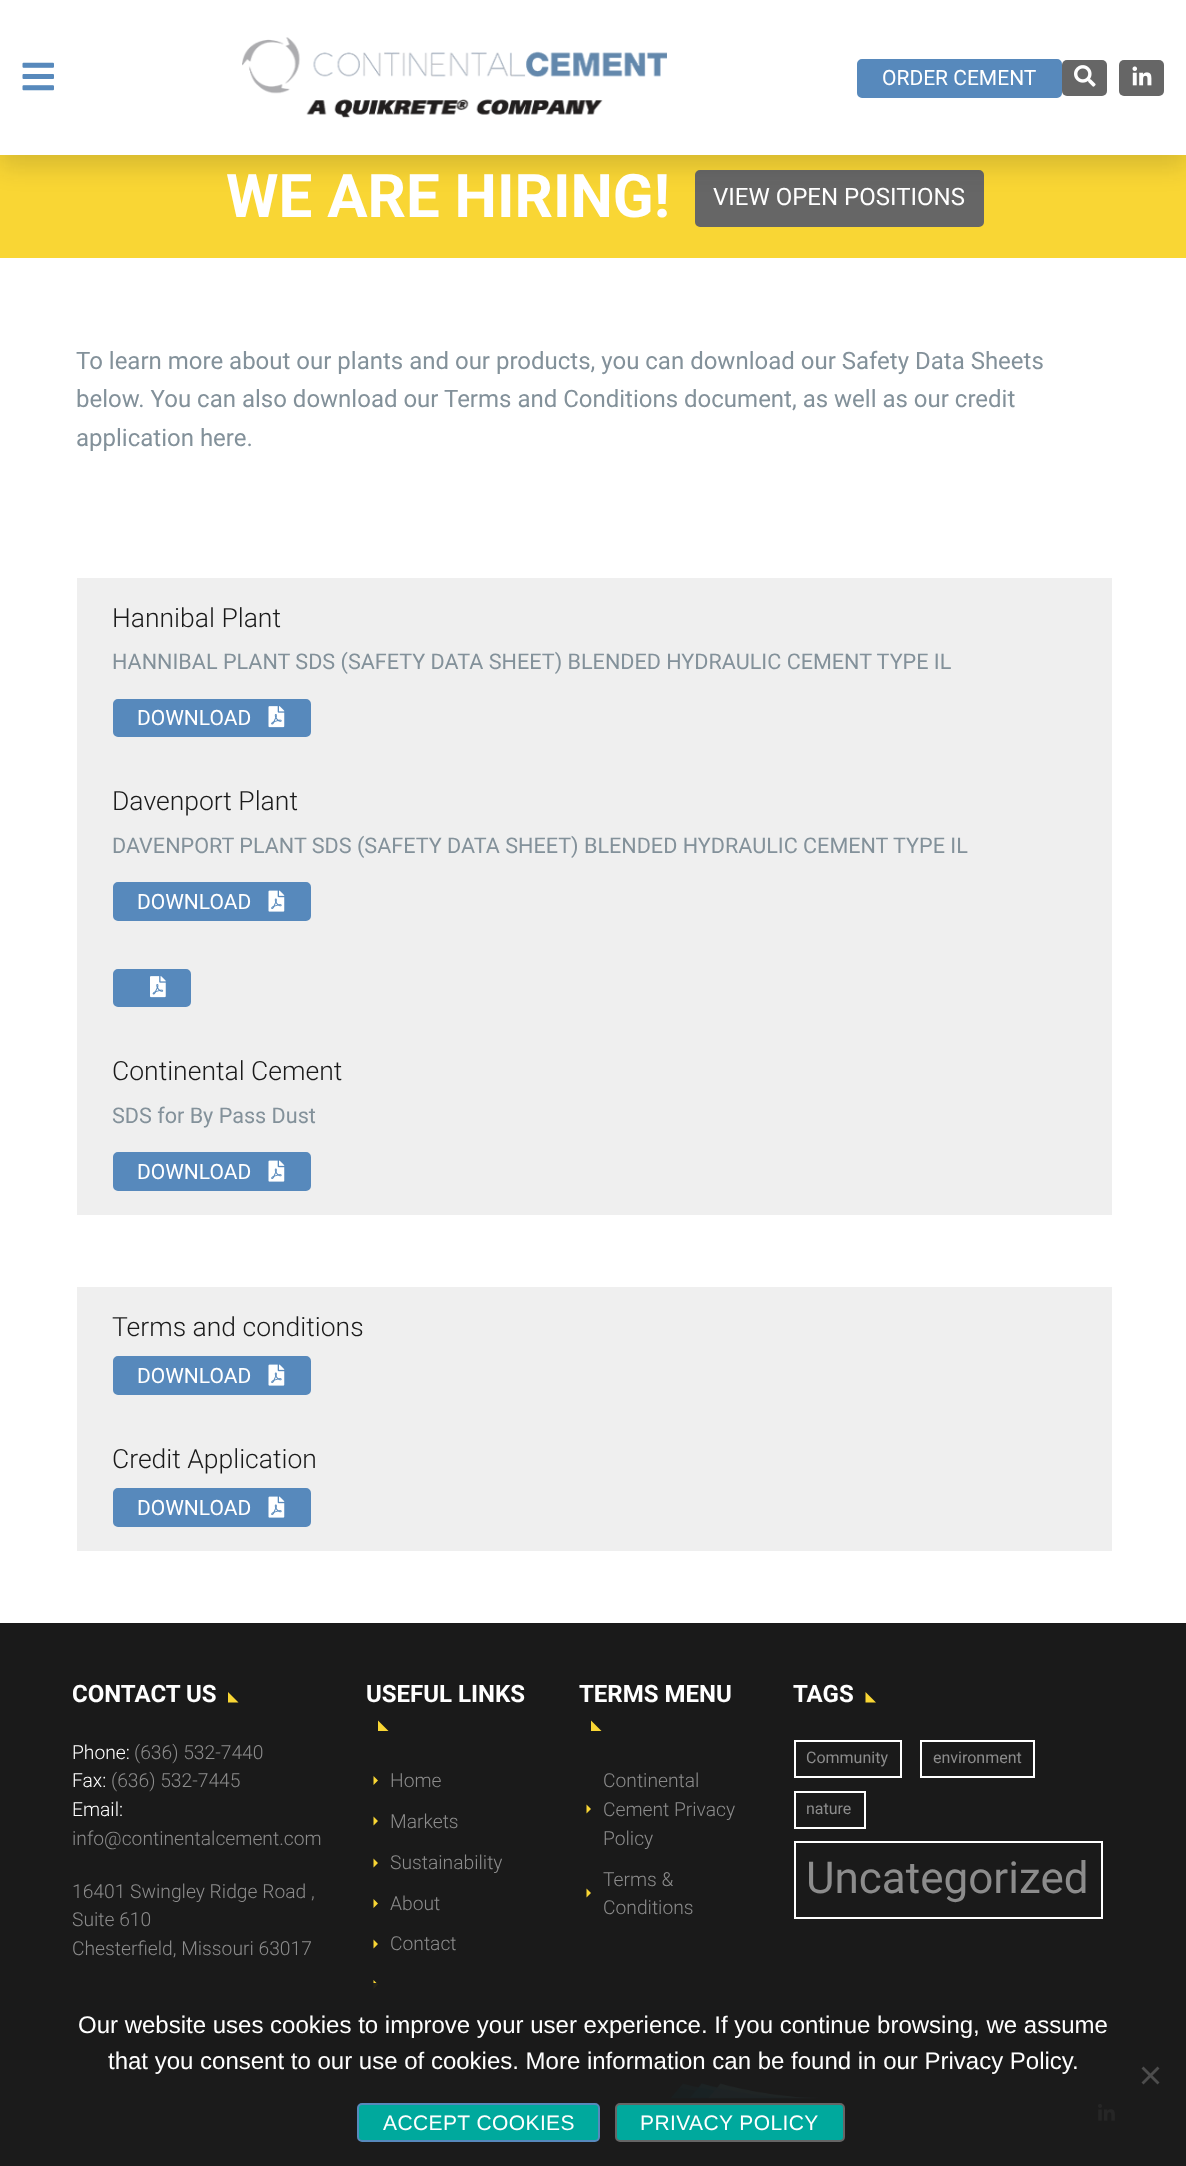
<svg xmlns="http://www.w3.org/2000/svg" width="1186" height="2166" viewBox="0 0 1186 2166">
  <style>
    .t1 { font: 21px Roboto; fill: #fff; }
    .t2 { font: bold 60px Roboto; fill: #fff; }
    .t3 { font: 24px Roboto; fill: #fff; }
    .t4 { font: 24px Roboto; fill: #83919a; }
    .t5 { font: 300 26.5px Roboto; fill: #1a1a1a; }
    .t6 { font: 21.6px Roboto; fill: #83919a; }
    .t7 { font: bold 24px Roboto; fill: #fff; }
    .t8 { font: 300 19.25px Roboto; fill: #fff; }
    .t9 { font: 300 19.25px Roboto; fill: #8c8c8c; }
    .t10 { font: 16px Roboto; fill: #8c8c8c; }
    .t11 { font: 44px Roboto; fill: #8c8c8c; }
    .t12 { font: 24px Liberation Sans; fill: #fff; }
    .t13 { font: 21px Liberation Sans; letter-spacing: 0.4px; fill: #fff; }
  </style>
  <rect width="100%" height="100%" fill="#fff"/>
  <rect x="0" y="155" width="1186" height="103" fill="#f9d634"/>
  <rect x="696" y="171" width="287" height="55" rx="4" fill="#666" stroke="#666" stroke-width="2"/>
  <rect x="0" y="12" width="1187" height="155" fill="#1a1a1a26" filter="blur(12px)"/>
  <rect x="0" y="0" width="1186" height="155" fill="#fff"/>
  <image x="22" y="62" width="32" height="29" href="images/1.png"/>
  <image x="242" y="37" width="425" height="81" href="images/2.png"/>
  <rect x="858" y="60" width="203" height="37" rx="4" fill="#5789bc" stroke="#5789bc" stroke-width="2"/>
  <text x="882" y="85" class="t1">ORDER CEMENT</text>
  <rect x="1062" y="60" width="45" height="36" rx="5" fill="#666"/>
  <image x="1074" y="65" width="22" height="22" href="images/3.png"/>
  <rect x="1119" y="60" width="45" height="36" rx="5" fill="#666"/>
  <image x="1132" y="66" width="20" height="20" href="images/4.png"/>
  <text x="226" y="217" class="t2">WE ARE HIRING!</text>
  <text x="713" y="205" class="t3">VIEW OPEN POSITIONS</text>
  <text x="76" y="369" class="t4">To learn more about our plants and our products, you can download our Safety Data Sheets</text>
  <text x="76" y="407" class="t4">below. You can also download our Terms and Conditions document, as well as our credit</text>
  <text x="76" y="446" class="t4">application here.</text>
  <rect x="77" y="578" width="1035" height="637" fill="#efefef"/>
  <text x="112" y="627" class="t5">Hannibal Plant</text>
  <text x="112" y="669" class="t6">HANNIBAL PLANT SDS (SAFETY DATA SHEET) BLENDED HYDRAULIC CEMENT TYPE IL</text>
  <rect x="114" y="700" width="196" height="36" rx="4" fill="#5789bc" stroke="#5789bc" stroke-width="2"/>
  <text x="137" y="725" class="t1">DOWNLOAD</text>
  <image x="268" y="706" width="17" height="22" href="images/5.png"/>
  <text x="112" y="810" class="t5">Davenport Plant</text>
  <text x="112" y="853" class="t6">DAVENPORT PLANT SDS (SAFETY DATA SHEET) BLENDED HYDRAULIC CEMENT TYPE IL</text>
  <rect x="114" y="883" width="196" height="37" rx="4" fill="#5789bc" stroke="#5789bc" stroke-width="2"/>
  <text x="137" y="909" class="t1">DOWNLOAD</text>
  <image x="268" y="890" width="17" height="22" href="images/6.png"/>
  <rect x="114" y="970" width="76" height="36" rx="4" fill="#5789bc" stroke="#5789bc" stroke-width="2"/>
  <image x="150" y="976" width="16" height="22" href="images/7.png"/>
  <text x="112" y="1080" class="t5">Continental Cement</text>
  <text x="112" y="1123" class="t6">SDS for By Pass Dust</text>
  <rect x="114" y="1153" width="196" height="37" rx="4" fill="#5789bc" stroke="#5789bc" stroke-width="2"/>
  <text x="137" y="1179" class="t1">DOWNLOAD</text>
  <image x="268" y="1160" width="17" height="22" href="images/6.png"/>
  <rect x="77" y="1287" width="1035" height="264" fill="#efefef"/>
  <text x="112" y="1336" class="t5">Terms and conditions</text>
  <rect x="114" y="1357" width="196" height="37" rx="4" fill="#5789bc" stroke="#5789bc" stroke-width="2"/>
  <text x="137" y="1383" class="t1">DOWNLOAD</text>
  <image x="268" y="1364" width="17" height="22" href="images/6.png"/>
  <text x="112" y="1468" class="t5">Credit Application</text>
  <rect x="114" y="1489" width="196" height="37" rx="4" fill="#5789bc" stroke="#5789bc" stroke-width="2"/>
  <text x="137" y="1515" class="t1">DOWNLOAD</text>
  <image x="268" y="1496" width="17" height="22" href="images/6.png"/>
  <rect x="0" y="1623" width="1186" height="437" fill="#1a1a1a"/>
  <text x="72" y="1702" class="t7">CONTACT US</text>
  <path d="M228 1702.5V1692L238.5 1702.5Z" fill="#f9d634"/>
  <text x="72" y="1759" class="t8">Phone:</text>
  <text x="134" y="1759" class="t9">(636) 532-7440</text>
  <text x="72" y="1787" class="t8">Fax:</text>
  <text x="111" y="1787" class="t9">(636) 532-7445</text>
  <text x="72" y="1816" class="t8">Email:</text>
  <text x="72" y="1845" class="t9">info@continentalcement.com</text>
  <text x="72" y="1898" class="t9">16401 Swingley Ridge Road ,</text>
  <text x="72" y="1926" class="t9">Suite 610</text>
  <text x="72" y="1955" class="t9">Chesterfield, Missouri 63017</text>
  <text x="366" y="1702" class="t7">USEFUL LINKS</text>
  <path d="M378 1731V1720.5L388.5 1731Z" fill="#f9d634"/>
  <path d="M373.5 1785V1776L378 1780.5ZM373.5 1825.5V1816.5L378 1821Z" fill="#f9d634"/>
  <text x="390" y="1787" class="t9">Home</text>
  <text x="390" y="1828" class="t9">Markets</text>
  <path d="M373.5 1867.5V1858.5L378 1863ZM373.5 1908V1899L378 1903.5Z" fill="#f9d634"/>
  <text x="390" y="1869" class="t9">Sustainability</text>
  <text x="390" y="1910" class="t9">About</text>
  <path d="M373.5 1948.5V1939.5L378 1944ZM373.5 1989V1980L378 1984.5Z" fill="#f9d634"/>
  <text x="390" y="1950" class="t9">Contact</text>
  <text x="579" y="1702" class="t7">TERMS MENU</text>
  <path d="M591 1731V1720.5L601.5 1731Z" fill="#f9d634"/>
  <text x="603" y="1787" class="t9">Continental</text>
  <path d="M586.5 1813.5V1804.5L591 1809Z" fill="#f9d634"/>
  <text x="603" y="1816" class="t9">Cement Privacy</text>
  <text x="603" y="1845" class="t9">Policy</text>
  <text x="603" y="1886" class="t9">Terms &amp;</text>
  <path d="M586.5 1897.5V1888.5L591 1893Z" fill="#f9d634"/>
  <text x="603" y="1914" class="t9">Conditions</text>
  <text x="793" y="1702" class="t7">TAGS</text>
  <path d="M865.5 1702.5V1692L876 1702.5Z" fill="#f9d634"/>
  <rect x="795" y="1741" width="106" height="36" fill="none" stroke="#fff" stroke-width="2"/>
  <text x="806" y="1763" class="t10">Community</text>
  <rect x="921" y="1741" width="113" height="36" fill="none" stroke="#fff" stroke-width="2"/>
  <text x="933" y="1763" class="t10">environment</text>
  <rect x="795" y="1792" width="70" height="36" fill="none" stroke="#fff" stroke-width="2"/>
  <text x="806" y="1814" class="t10">nature</text>
  <rect x="795" y="1842" width="307" height="76" fill="none" stroke="#fff" stroke-width="2"/>
  <text x="806" y="1893" class="t11">Uncategorized</text>
  <rect x="0" y="2060" width="1186" height="106" fill="#2c2c2c"/>
  <image x="670" y="2083" width="150" height="16" href="images/8.png"/>
  <image x="1098" y="2103" width="17" height="18" href="images/9.png"/>
  <rect x="0" y="1983" width="1186" height="183" fill="#1a1a1af2"/>
  <text x="78" y="2033" class="t12">Our website uses cookies to improve your user experience. If you continue browsing, we assume</text>
  <text x="108" y="2069" class="t12">that you consent to our use of cookies. More information can be found in our Privacy Policy.</text>
  <path d="M1157.5 2066.5L1159.5 2068.5L1143.5 2084.5L1141.5 2082.5Z" fill="#4d4d4d"/>
  <path d="M1141.5 2068.5L1143.5 2066.5L1159.5 2082.5L1157.5 2084.5Z" fill="#4d4d4d"/>
  <rect x="358" y="2104" width="241" height="37" rx="4" fill="#00a99d" stroke="#5789bc" stroke-width="2"/>
  <text x="383" y="2130" class="t13">ACCEPT COOKIES</text>
  <rect x="616" y="2104" width="228" height="37" rx="4" fill="#00a99d" stroke="#666" stroke-width="2"/>
  <text x="640" y="2130" class="t13">PRIVACY POLICY</text>
</svg>
